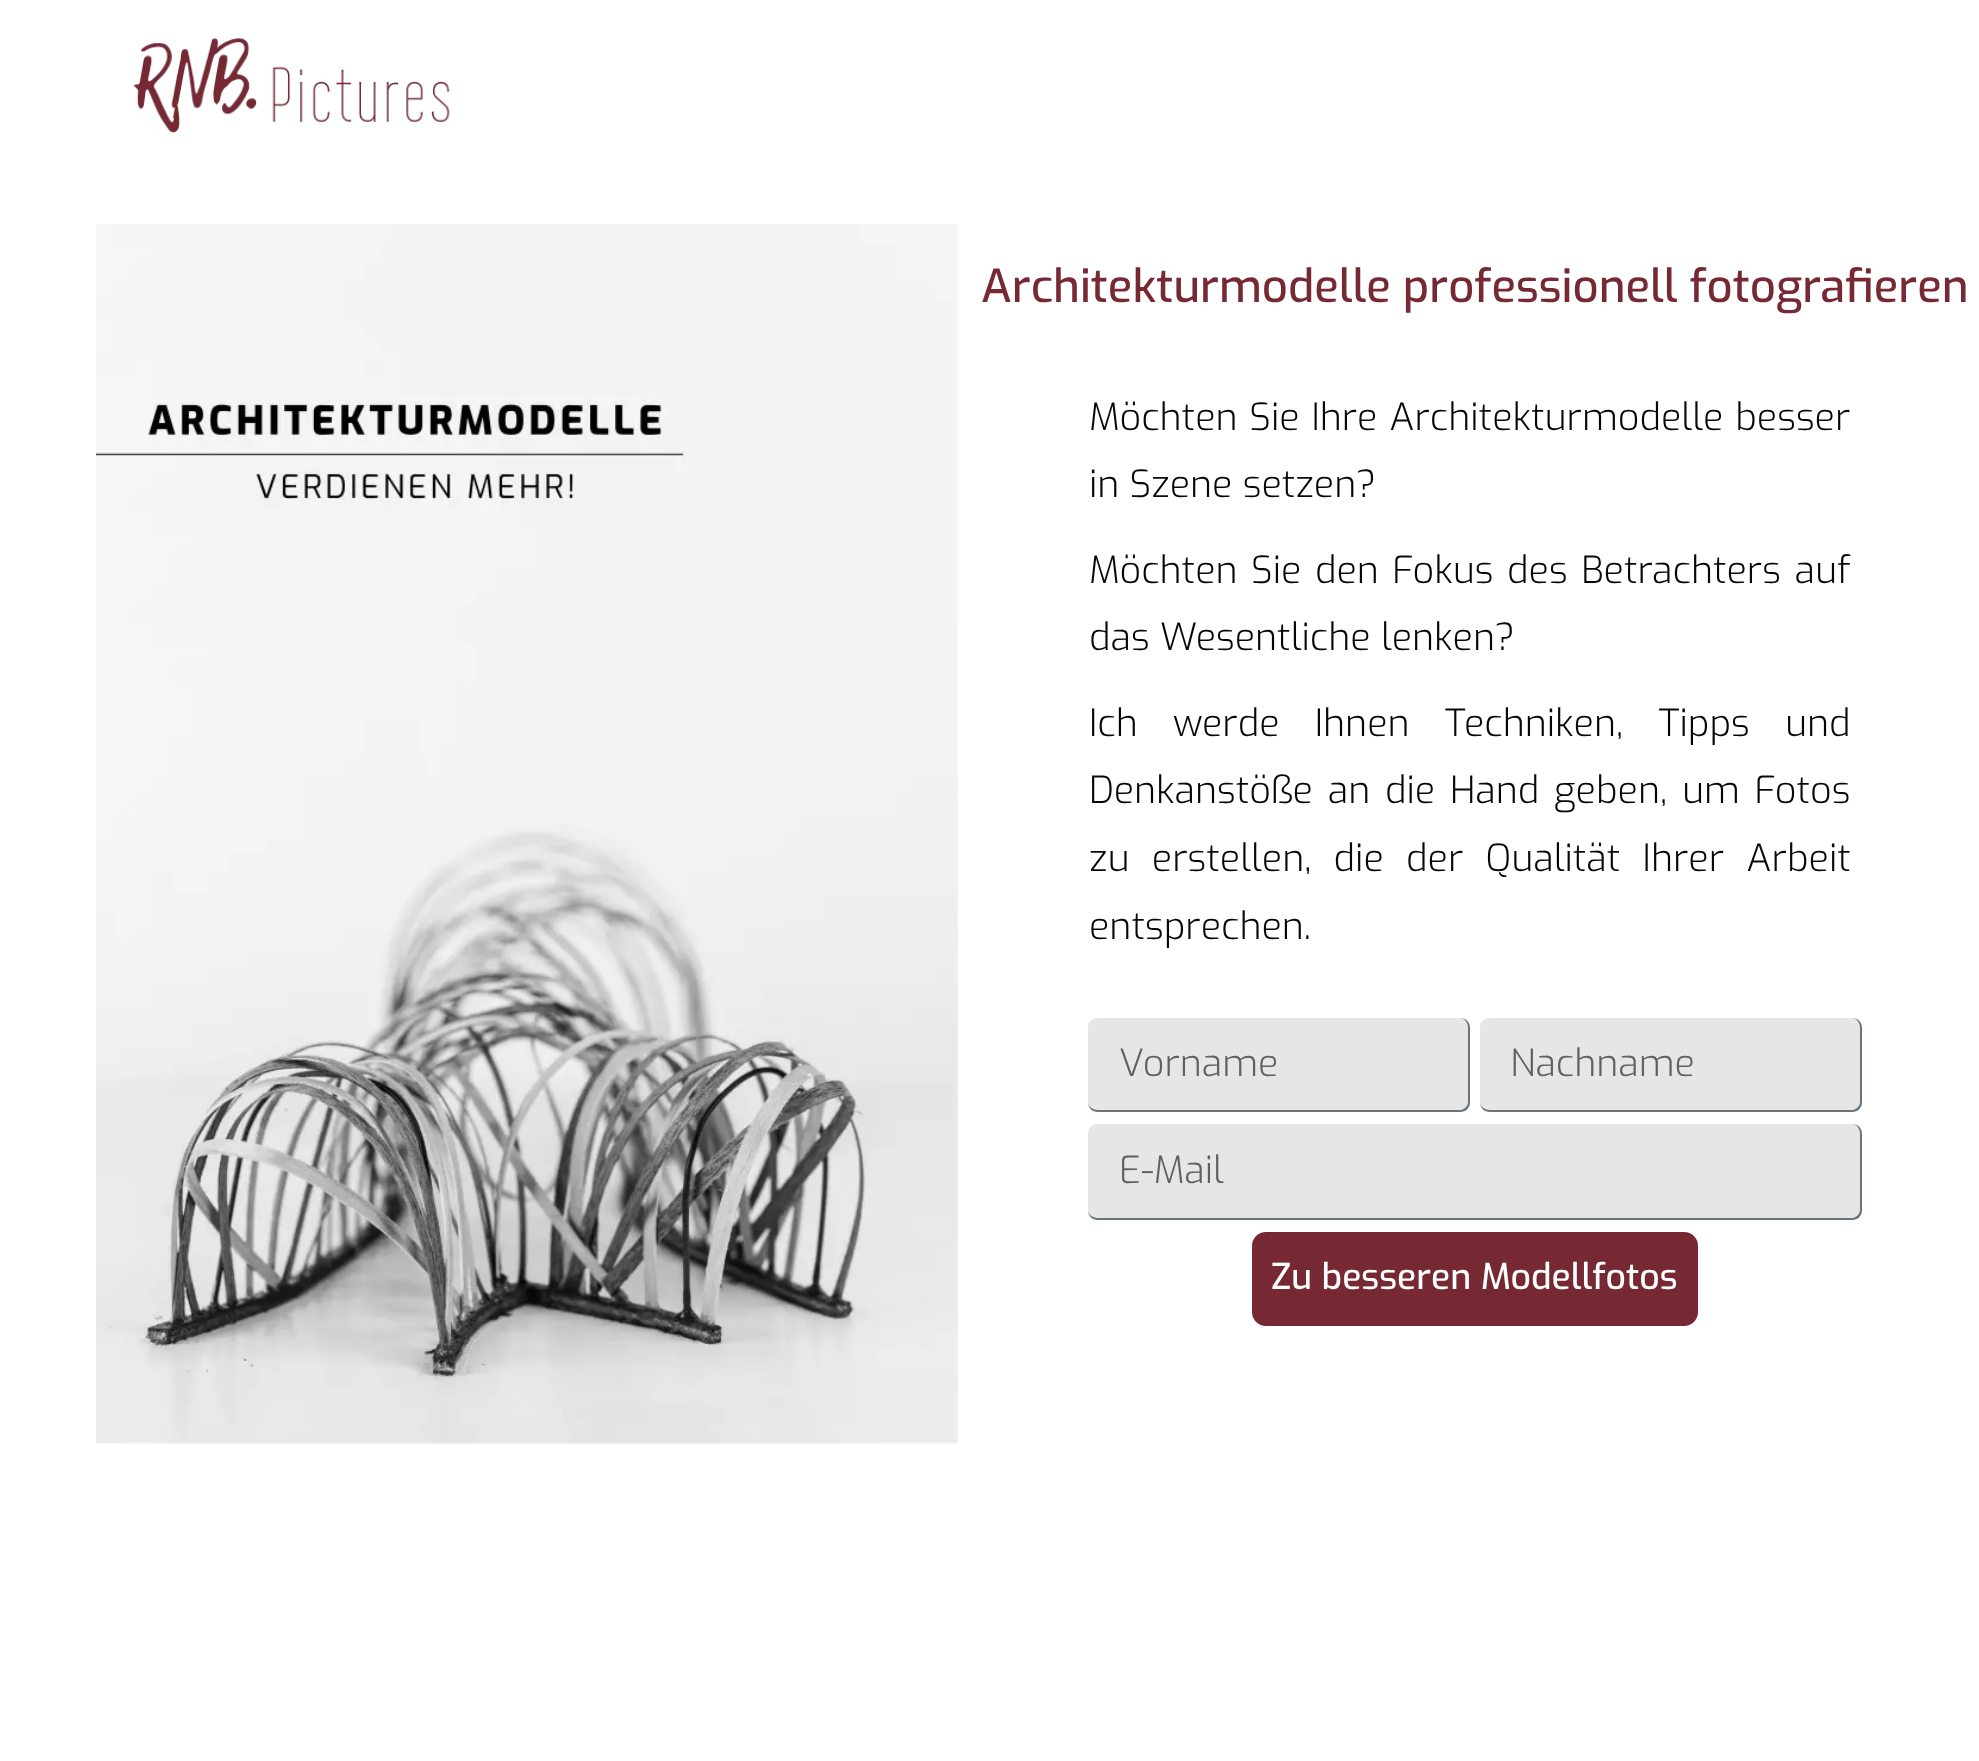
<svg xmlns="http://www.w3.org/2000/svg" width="1979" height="1761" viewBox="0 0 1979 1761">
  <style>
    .t1 { font: 500 45.5px Exo; fill: #762933; }
    .t2 { font: 300 37.6px Exo; fill: #070707; }
    .t3 { font: 300 37.6px Exo; fill: #606060; }
    .t4 { font: 500 35.6px Exo; fill: #fff; }
  </style>
  <rect width="100%" height="100%" fill="#fff"/>
  <image x="133" y="38" width="317" height="95" href="images/1.png"/>
  <image x="96" y="224" width="862" height="1220" href="images/2.png"/>
  <text x="981" y="302" class="t1">Architekturmodelle professionell fotografieren</text>
  <text x="1089" y="430" word-spacing="1.5" class="t2">Möchten Sie Ihre Architekturmodelle besser</text>
  <text x="1089" y="497" class="t2">in Szene setzen?</text>
  <text x="1089" y="583" word-spacing="3.25" class="t2">Möchten Sie den Fokus des Betrachters auf</text>
  <text x="1089" y="650" class="t2">das Wesentliche lenken?</text>
  <text x="1089" y="736" word-spacing="25" class="t2">Ich werde Ihnen Techniken, Tipps und</text>
  <text x="1089" y="803" word-spacing="4.5" class="t2">Denkanstöße an die Hand geben, um Fotos</text>
  <text x="1089" y="871" word-spacing="12" class="t2">zu erstellen, die der Qualität Ihrer Arbeit</text>
  <text x="1089" y="939" class="t2">entsprechen.</text>
  <path d="M1098 1018H1460C1464 1018 1468 1022 1468 1028V1102C1468 1106 1464 1110 1460 1110H1098C1092 1110 1088 1106 1088 1102V1028C1088 1022 1092 1018 1098 1018Z" fill="#e6e6e6"/>
  <path d="M1098 1018H1460C1466 1018 1470 1022 1470 1028V1102C1470 1108 1466 1112 1460 1112H1098C1092 1112 1088 1108 1088 1102V1028C1088 1022 1092 1018 1098 1018ZM1098 1018H1460C1464 1018 1468 1022 1468 1028V1102C1468 1106 1464 1110 1460 1110H1098C1092 1110 1088 1106 1088 1102V1028C1088 1022 1092 1018 1098 1018Z" fill="#69727d" fill-rule="evenodd"/>
  <text x="1119" y="1076" class="t3">Vorname</text>
  <path d="M1490 1018H1852C1856 1018 1860 1022 1860 1028V1102C1860 1106 1856 1110 1852 1110H1490C1484 1110 1480 1106 1480 1102V1028C1480 1022 1484 1018 1490 1018Z" fill="#e6e6e6"/>
  <path d="M1490 1018H1852C1858 1018 1862 1022 1862 1028V1102C1862 1108 1858 1112 1852 1112H1490C1484 1112 1480 1108 1480 1102V1028C1480 1022 1484 1018 1490 1018ZM1490 1018H1852C1856 1018 1860 1022 1860 1028V1102C1860 1106 1856 1110 1852 1110H1490C1484 1110 1480 1106 1480 1102V1028C1480 1022 1484 1018 1490 1018Z" fill="#69727d" fill-rule="evenodd"/>
  <text x="1510" y="1076" class="t3">Nachname</text>
  <path d="M1098 1124H1852C1856 1124 1860 1128 1860 1134V1210C1860 1214 1856 1218 1852 1218H1098C1092 1218 1088 1214 1088 1210V1134C1088 1128 1092 1124 1098 1124Z" fill="#e6e6e6"/>
  <path d="M1098 1124H1852C1858 1124 1862 1128 1862 1134V1210C1862 1216 1858 1220 1852 1220H1098C1092 1220 1088 1216 1088 1210V1134C1088 1128 1092 1124 1098 1124ZM1098 1124H1852C1856 1124 1860 1128 1860 1134V1210C1860 1214 1856 1218 1852 1218H1098C1092 1218 1088 1214 1088 1210V1134C1088 1128 1092 1124 1098 1124Z" fill="#69727d" fill-rule="evenodd"/>
  <text x="1119" y="1183" class="t3">E-Mail</text>
  <rect x="1252" y="1232" width="446" height="94" rx="14" fill="#762933"/>
  <text x="1271" y="1289" class="t4">Zu besseren Modellfotos</text>
</svg>
